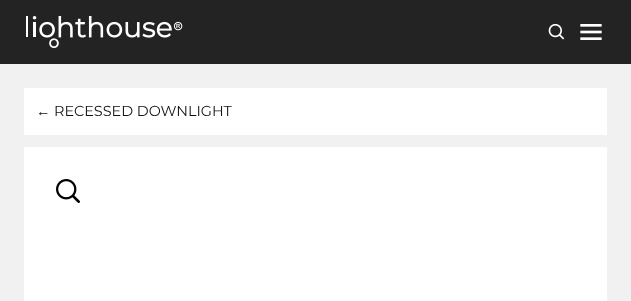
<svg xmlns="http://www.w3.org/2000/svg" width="631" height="301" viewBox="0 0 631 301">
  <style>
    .t1 { font: 14.4px Liberation Sans; fill: #111; }
    .t2 { font: 14.4px Montserrat; fill: #111; }
  </style>
  <rect width="100%" height="100%" fill="#f1f1f1"/>
  <rect x="0" y="0" width="631" height="64" fill="#232323"/>
  <image x="26" y="16" width="157" height="32" href="images/1.png"/>
  <image x="548" y="23" width="17" height="17" href="images/2.png"/>
  <image x="580" y="24" width="22" height="16" href="images/3.png"/>
  <rect x="24" y="88" width="583" height="47" fill="#fff"/>
  <text x="36" y="116" class="t1">←</text>
  <text x="54" y="116" class="t2">RECESSED DOWNLIGHT</text>
  <rect x="24" y="147" width="583" height="154" fill="#fff"/>
  <image x="56" y="179" width="24" height="24" href="images/4.png"/>
</svg>
